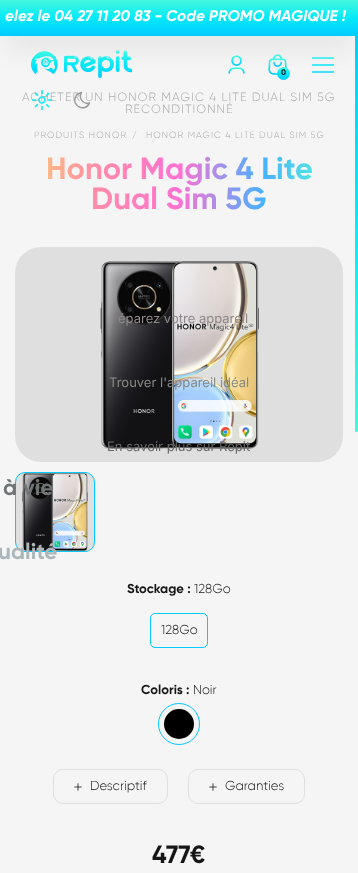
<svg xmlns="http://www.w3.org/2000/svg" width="358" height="873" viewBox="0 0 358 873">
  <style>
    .t1 { font: italic bold 15.5px Gilroy; fill: #fff; }
    .t2 { font: 300 12.1px Gilroy; letter-spacing: 1.05px; fill: #aaa; }
    .t3 { font: bold 8px Gilroy; fill: #000; }
    .t4 { font: 300 9.1px Gilroy; letter-spacing: 1.05px; fill: #aaa; }
    .t5 { font: bold 30.9px Gilroy; fill: url(#g1); }
    .t6 { font: bold 13px Gilroy; fill: #161616; }
    .t7 { font: 300 13px Gilroy; fill: #161616; }
    .t8 { font: bold 25px Gilroy; fill: #161616; }
    .t9 { font: 13px Inter; fill: #8e8a89; }
    .t10 { font: 13px Inter; fill: #878a84; }
    .t11 { font: 13px Inter; fill: #686869; }
    .t12 { font: bold 22.5px Gilroy; fill: #6f7475; }
    .t13 { font: bold 22.5px Gilroy; fill: #abb6b9; }
  </style>
  <defs>
    <linearGradient id="g1" gradientUnits="userSpaceOnUse" x1="343" y1="186" x2="15" y2="186"><stop offset="0" stop-color="#54ffd4"/><stop offset="0.25" stop-color="#49b0ff"/><stop offset="0.5" stop-color="#ff71d2"/><stop offset="0.75" stop-color="#ff8ca9"/><stop offset="1" stop-color="#ffd474"/></linearGradient>
    <linearGradient id="g2" gradientUnits="userSpaceOnUse" x1="357" y1="432" x2="357" y2="0"><stop offset="0" stop-color="#44f8de"/><stop offset="0.5" stop-color="#06e9f9"/><stop offset="1" stop-color="#03caff"/></linearGradient>
    <linearGradient id="g3" gradientUnits="userSpaceOnUse" x1="179" y1="0" x2="179" y2="36"><stop offset="0" stop-color="#44f8de"/><stop offset="0.5" stop-color="#06e9f9"/><stop offset="1" stop-color="#03caff"/></linearGradient>
    <linearGradient id="g4" gradientUnits="userSpaceOnUse" x1="284" y1="67" x2="284" y2="80"><stop offset="0" stop-color="#44f8de"/><stop offset="0.5" stop-color="#06e9f9"/><stop offset="1" stop-color="#03caff"/></linearGradient>
    <linearGradient id="g5" gradientUnits="userSpaceOnUse" x1="280" y1="52" x2="280" y2="74"><stop offset="0" stop-color="#44f8de"/><stop offset="0.5" stop-color="#06e9f9"/><stop offset="1" stop-color="#03caff"/></linearGradient>
    <linearGradient id="g6" gradientUnits="userSpaceOnUse" x1="280" y1="56" x2="280" y2="78"><stop offset="0" stop-color="#44f8de"/><stop offset="0.5" stop-color="#06e9f9"/><stop offset="1" stop-color="#03caff"/></linearGradient>
  </defs>
  <rect width="100%" height="100%" fill="#f5f5f5"/>
  <rect x="355" y="0" width="3" height="432" rx="1.5" fill="url(#g2)"/>
  <rect x="5" y="25" width="348" height="26" fill="#0000000f" filter="blur(12.5px)"/>
  <rect x="0" y="0" width="358" height="36" fill="url(#g3)"/>
  <text x="5" y="21" class="t1">elez le 04 27 11 20 83 -</text>
  <text x="166" y="21" class="t1">Code PROMO MAGIQUE !</text>
  <image x="31" y="50" width="101" height="28" href="images/1.png"/>
  <text x="22" y="101" class="t2">ACHETER UN HONOR MAGIC 4 LITE DUAL SIM 5G</text>
  <image x="32" y="90" width="20" height="21" href="images/2.png"/>
  <path d="M89.5 103C85.5 113 70 105.5 76 96C77 94 79.5 93 81.5 92.5C78 98 83.5 105 89.5 103Z" fill="none" stroke="#999" stroke-width="1.4" stroke-linecap="round" stroke-linejoin="round"/>
  <image x="228" y="55" width="17" height="19" href="images/3.png"/>
  <image x="268" y="54" width="19" height="21" href="images/4.png"/>
  <circle cx="283.5" cy="73.5" r="6.5" fill="url(#g4)"/>
  <text x="281" y="75" class="t3">0</text>
  <path d="M312.5 58H333.5" fill="none" stroke="url(#g5)" stroke-width="1.3" stroke-linecap="round" stroke-linejoin="round"/>
  <path d="M312.5 65H333.5" fill="none" stroke="#06e9f9" stroke-width="1.3" stroke-linecap="round" stroke-linejoin="round"/>
  <path d="M312.5 72H333.5" fill="none" stroke="url(#g6)" stroke-width="1.3" stroke-linecap="round" stroke-linejoin="round"/>
  <text x="125" y="113" class="t2">RECONDITIONNÉ</text>
  <text x="34" y="138" class="t4">PRODUITS HONOR</text>
  <text x="132" y="138" class="t4">/</text>
  <text x="146" y="138" class="t4">HONOR MAGIC 4 LITE DUAL SIM 5G</text>
  <text x="46" y="179" class="t5">Honor Magic 4 Lite</text>
  <text x="91" y="209" class="t5">Dual Sim 5G</text>
  <rect x="15" y="247" width="328" height="215" rx="26" fill="#dfdfdf"/>
  <image x="100" y="261" width="159" height="188" href="images/5.png"/>
  <rect x="15.5" y="472.5" width="79" height="79" rx="9.5" fill="#dfdfdf" stroke="#03caff"/>
  <image x="22" y="473" width="66" height="78" href="images/6.png"/>
  <text x="127" y="593" class="t6">Stockage :</text>
  <text x="194" y="593" class="t7">128Go</text>
  <rect x="150.5" y="613.5" width="57" height="34" rx="4.5" fill="none" stroke="#03caff"/>
  <text x="161" y="634" class="t7">128Go</text>
  <text x="141" y="694" class="t6">Coloris :</text>
  <text x="193" y="694" class="t7">Noir</text>
  <circle cx="179" cy="724" r="20.5" fill="none" stroke="#03caff"/>
  <circle cx="179" cy="724" r="15" fill="#000"/>
  <rect x="53.5" y="769.5" width="114" height="34" rx="9.5" fill="none" stroke="#dfdfdf"/>
  <image x="74" y="783" width="8" height="8" href="images/7.png"/>
  <text x="90" y="790" class="t7">Descriptif</text>
  <rect x="188.5" y="769.5" width="116" height="34" rx="9.5" fill="none" stroke="#dfdfdf"/>
  <image x="209" y="783" width="8" height="8" href="images/7.png"/>
  <text x="225" y="790" class="t7">Garanties</text>
  <text x="190" y="863" class="t8">€</text>
  <text x="152" y="863" class="t8">477</text>
  <text x="118" y="323" class="t9">éparez votre appareil</text>
  <text x="109" y="387" class="t10">Trouver l'appareil idéal</text>
  <text x="107" y="451" class="t11">En savoir plus sur Repit</text>
  <text x="3" y="495" class="t12">à vie</text>
  <text x="-2" y="559" class="t13">ualité</text>
</svg>
